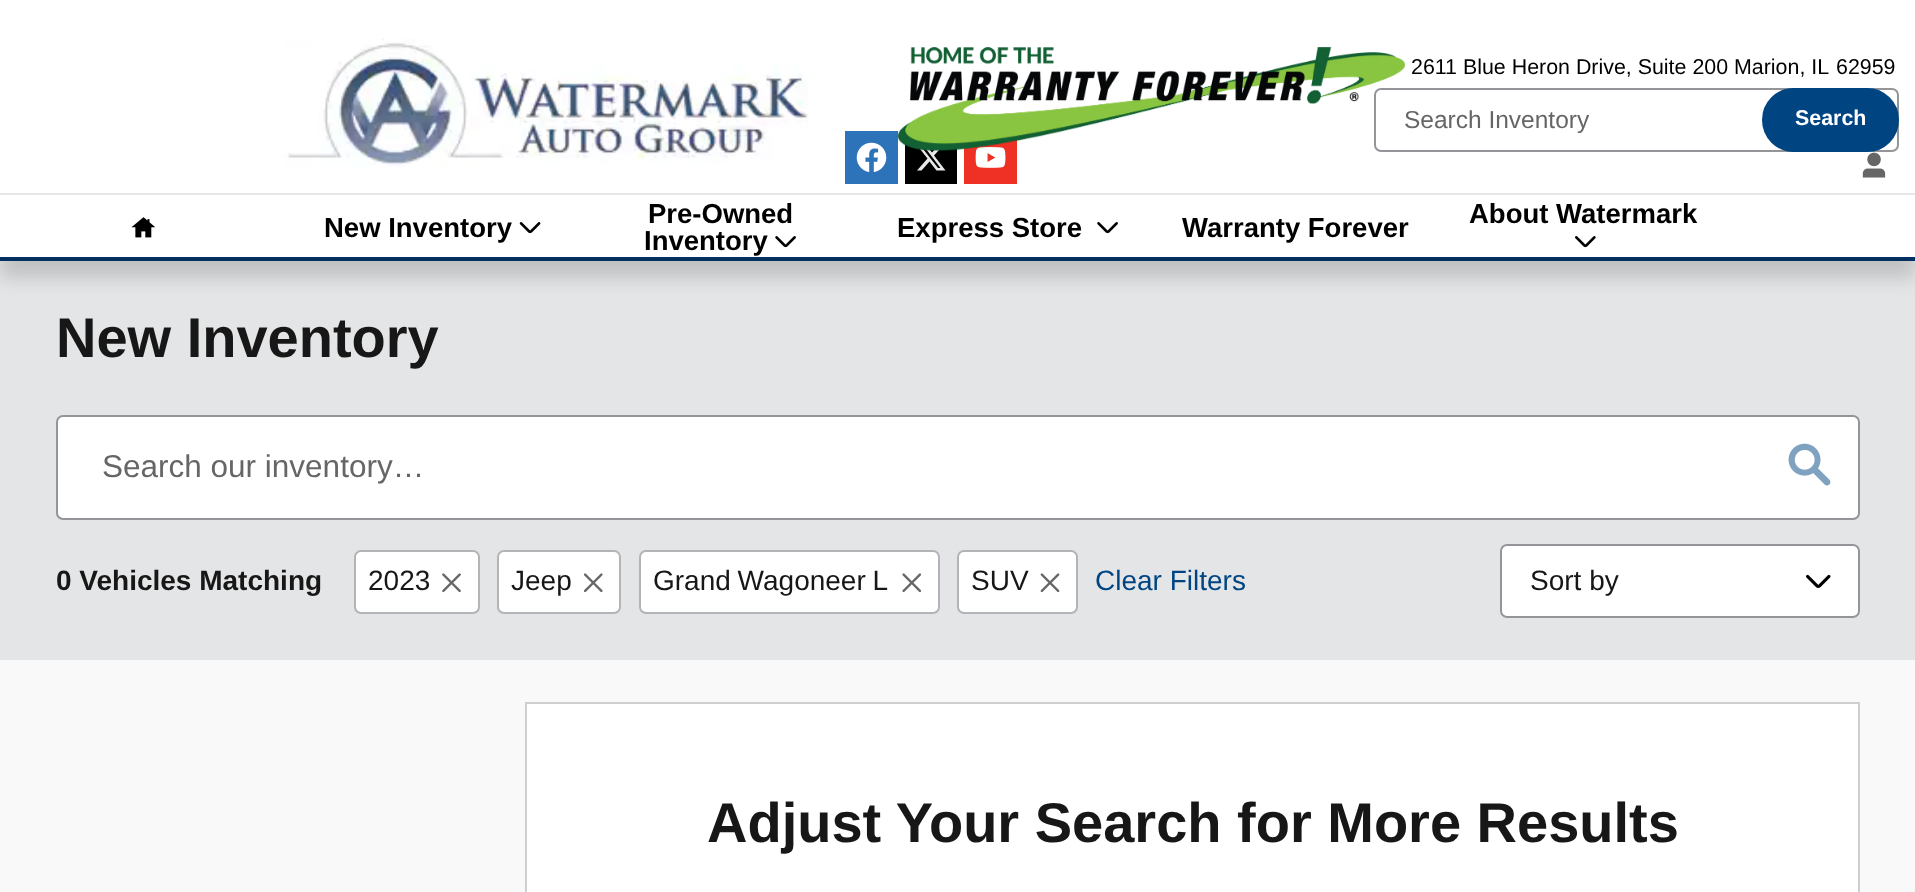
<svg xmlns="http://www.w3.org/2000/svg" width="1915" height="892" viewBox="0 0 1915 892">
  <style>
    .t1 { font: 24.5px Liberation Sans; fill: #666; }
    .t2 { font: 21.4px Liberation Sans; fill: #000; }
    .t3 { font: bold 21.4px Liberation Sans; fill: #fff; }
    .t4 { font: bold 27.5px Liberation Sans; fill: #000; }
    .t5 { font: bold 56px Liberation Sans; fill: #171717; }
    .t6 { font: 31.5px Liberation Sans; fill: #666; }
    .t7 { font: bold 28px Liberation Sans; fill: #171717; }
    .t8 { font: 28px Liberation Sans; fill: #171717; }
    .t9 { font: 28px Liberation Sans; fill: #004582; }
  </style>
  <rect width="100%" height="100%" fill="#f9f9fa"/>
  <rect x="0" y="261" width="1915" height="399" fill="#e4e5e6"/>
  <rect x="0" y="210" width="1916" height="68" fill="#00000026" filter="blur(9px)"/>
  <rect x="0" y="0" width="1915" height="193" fill="#fff"/>
  <image x="284" y="38" width="525" height="129" href="images/1.png"/>
  <rect x="905" y="144" width="52" height="40" fill="#000"/>
  <path d="M939.5 144.5H944L934 155.5L945.5 170.5H936.5L929.5 161.5L921.5 170.5H917L927.5 158.5L916.5 144.5H925.5L932 152.5ZM938 168H940.5L924.5 147H921.5Z" fill="#e7e9ea"/>
  <image x="964" y="139" width="53" height="45" href="images/4.png"/>
  <rect x="1375" y="89" width="523" height="62" rx="6" fill="none" stroke="#949599" stroke-width="2"/>
  <text x="1404" y="128" class="t1">Search Inventory</text>
  <image x="898" y="47" width="507" height="104" href="images/2.png"/>
  <text x="1411" y="74" class="t2">2611 Blue Heron Drive, Suite 200 Marion, IL</text>
  <text x="1836" y="74" class="t2">62959</text>
  <image x="845" y="131" width="53" height="53" href="images/3.png"/>
  <rect x="1763" y="89" width="135" height="62" rx="31" fill="#004582" stroke="#004582" stroke-width="2"/>
  <text x="1795" y="125" class="t3">Search</text>
  <image x="1862" y="152" width="24" height="26" href="images/5.png"/>
  <rect x="0" y="195" width="1915" height="62" fill="#fff"/>
  <rect x="0" y="257" width="1915" height="4" fill="#002f60"/>
  <rect x="0" y="193" width="1915" height="2" fill="#e6e6e6"/>
  <text x="648" y="223" class="t4">Pre-Owned</text>
  <text x="644" y="250" class="t4">Inventory</text>
  <image x="775" y="236" width="21" height="12" href="images/6.png"/>
  <text x="1469" y="223" class="t4">About Watermark</text>
  <image x="1575" y="236" width="21" height="12" href="images/7.png"/>
  <image x="131" y="217" width="25" height="21" href="images/8.png"/>
  <text x="324" y="237" class="t4">New Inventory</text>
  <image x="519" y="222" width="22" height="12" href="images/9.png"/>
  <text x="897" y="237" class="t4">Express Store</text>
  <image x="1097" y="222" width="21" height="12" href="images/6.png"/>
  <text x="1182" y="237" class="t4">Warranty Forever</text>
  <text x="56" y="357" class="t5">New Inventory</text>
  <rect x="57" y="416" width="1802" height="103" rx="6" fill="#fff" stroke="#949599" stroke-width="2"/>
  <text x="102" y="477" class="t6">Search our inventory…</text>
  <image x="1788" y="443" width="43" height="43" href="images/10.png"/>
  <text x="56" y="590" class="t7">0 Vehicles Matching</text>
  <rect x="355" y="551" width="124" height="62" rx="6" fill="#fff" stroke="#b3b4b7" stroke-width="2"/>
  <text x="368" y="590" class="t8">2023</text>
  <image x="442" y="573" width="19" height="20" href="images/11.png"/>
  <rect x="498" y="551" width="122" height="62" rx="6" fill="#fff" stroke="#b3b4b7" stroke-width="2"/>
  <text x="511" y="590" class="t8">Jeep</text>
  <image x="583" y="573" width="20" height="20" href="images/12.png"/>
  <rect x="640" y="551" width="299" height="62" rx="6" fill="#fff" stroke="#b3b4b7" stroke-width="2"/>
  <text x="653" y="590" word-spacing="-1" class="t8">Grand Wagoneer L</text>
  <image x="902" y="573" width="20" height="20" href="images/13.png"/>
  <rect x="958" y="551" width="119" height="62" rx="6" fill="#fff" stroke="#b3b4b7" stroke-width="2"/>
  <text x="971" y="590" class="t8">SUV</text>
  <image x="1040" y="573" width="20" height="20" href="images/14.png"/>
  <text x="1095" y="590" class="t9">Clear Filters</text>
  <rect x="1500" y="544" width="360" height="74" rx="7" fill="#fff"/>
  <image x="1806" y="574" width="25" height="14" href="images/15.png"/>
  <rect x="1501" y="545" width="358" height="72" rx="6" fill="none" stroke="#949599" stroke-width="2"/>
  <text x="1530" y="590" class="t8">Sort by</text>
  <rect x="526" y="703" width="1333" height="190" fill="#fff" stroke="#cecfd1" stroke-width="2"/>
  <text x="707" y="842" class="t5">Adjust Your Search for More Results</text>
</svg>
